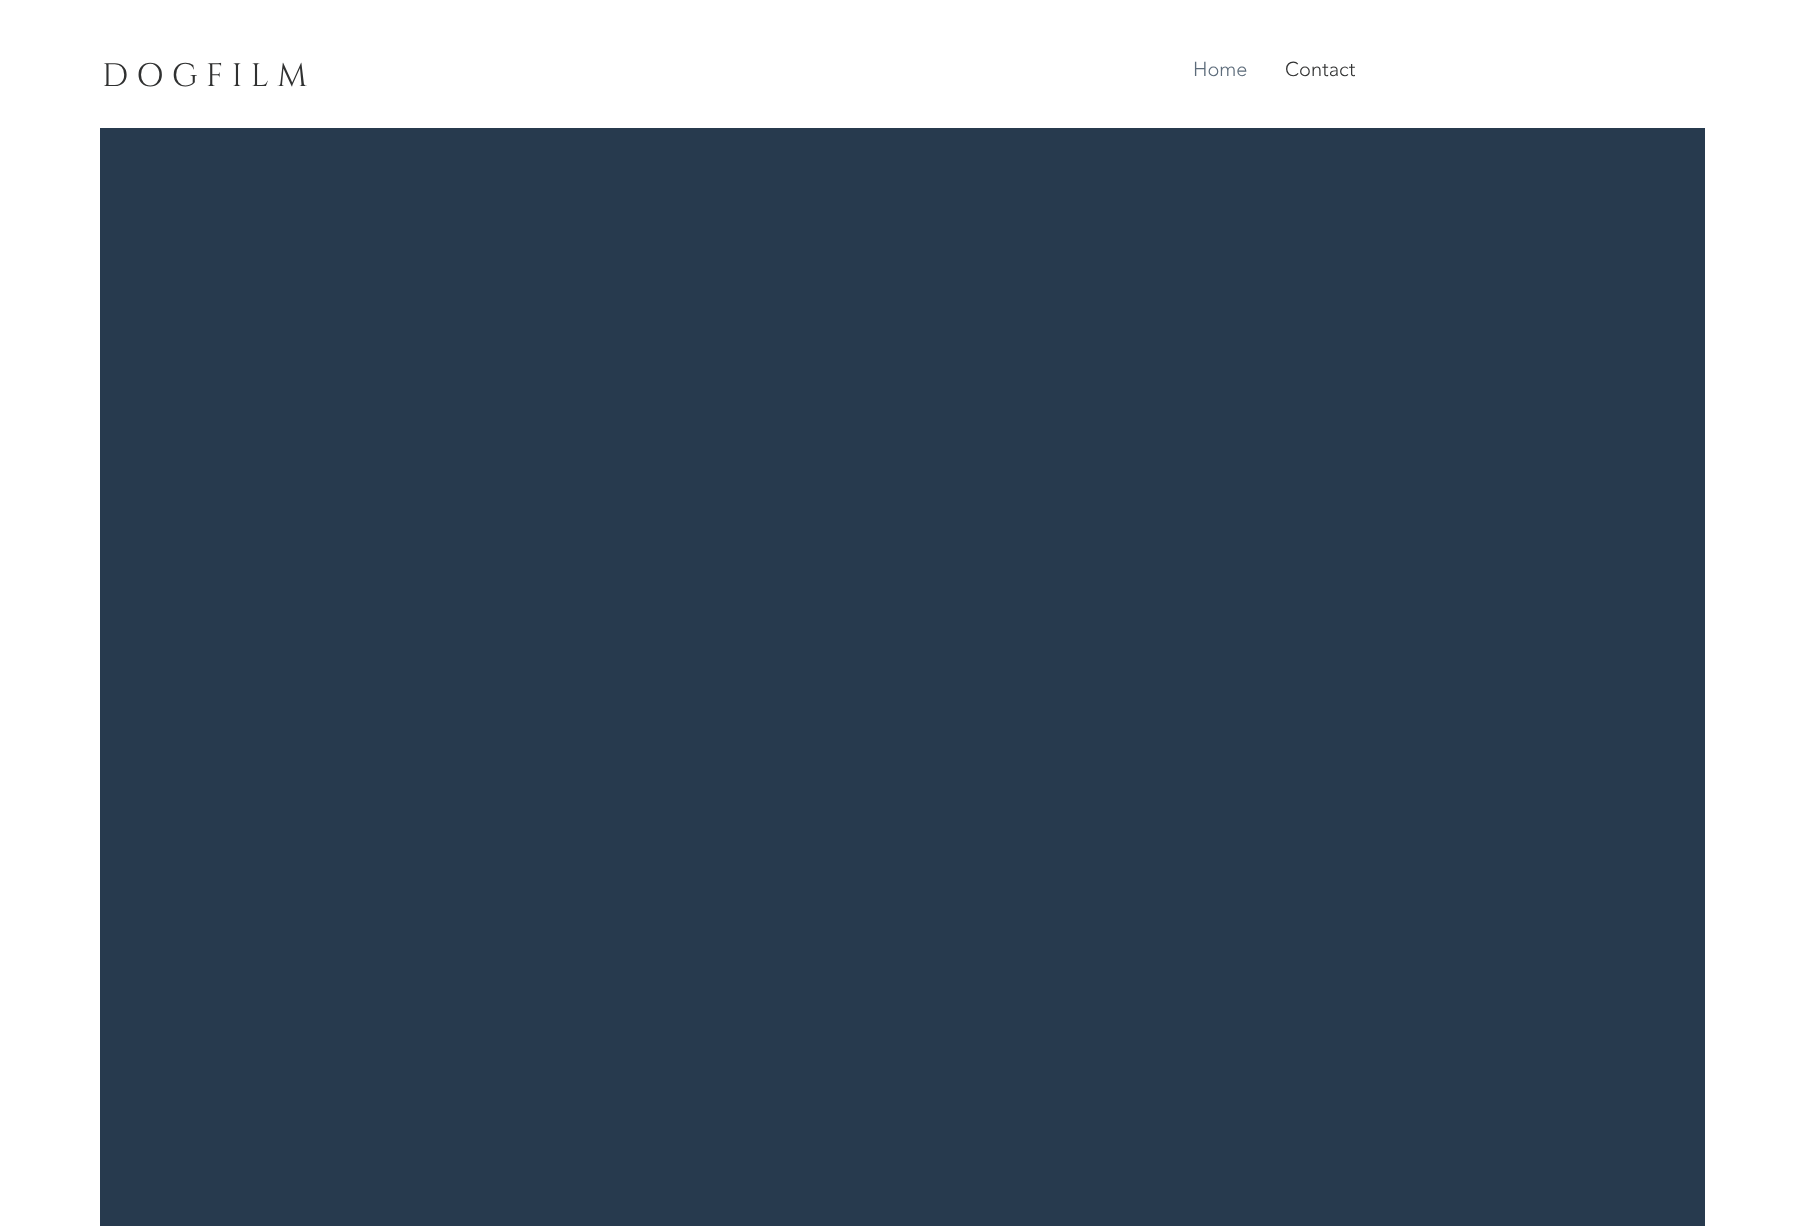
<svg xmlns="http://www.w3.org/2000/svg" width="1804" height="1226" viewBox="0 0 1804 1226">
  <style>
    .t1 { font: 32.5px Cinzel; fill: #303131; }
    .t2 { font: 300 20px 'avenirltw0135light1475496'; fill: #5c6b7a; }
    .t3 { font: 300 20px 'avenirltw0135light1475496'; fill: #303131; }
  </style>
  <rect width="100%" height="100%" fill="#fff"/>
  <text x="102" y="86" class="t1">D O G F I L M</text>
  <text x="1193" y="76" class="t2">Home</text>
  <text x="1285" y="76" class="t3">Contact</text>
  <rect x="100" y="128" width="1605" height="1098" fill="#273a4e"/>
</svg>
